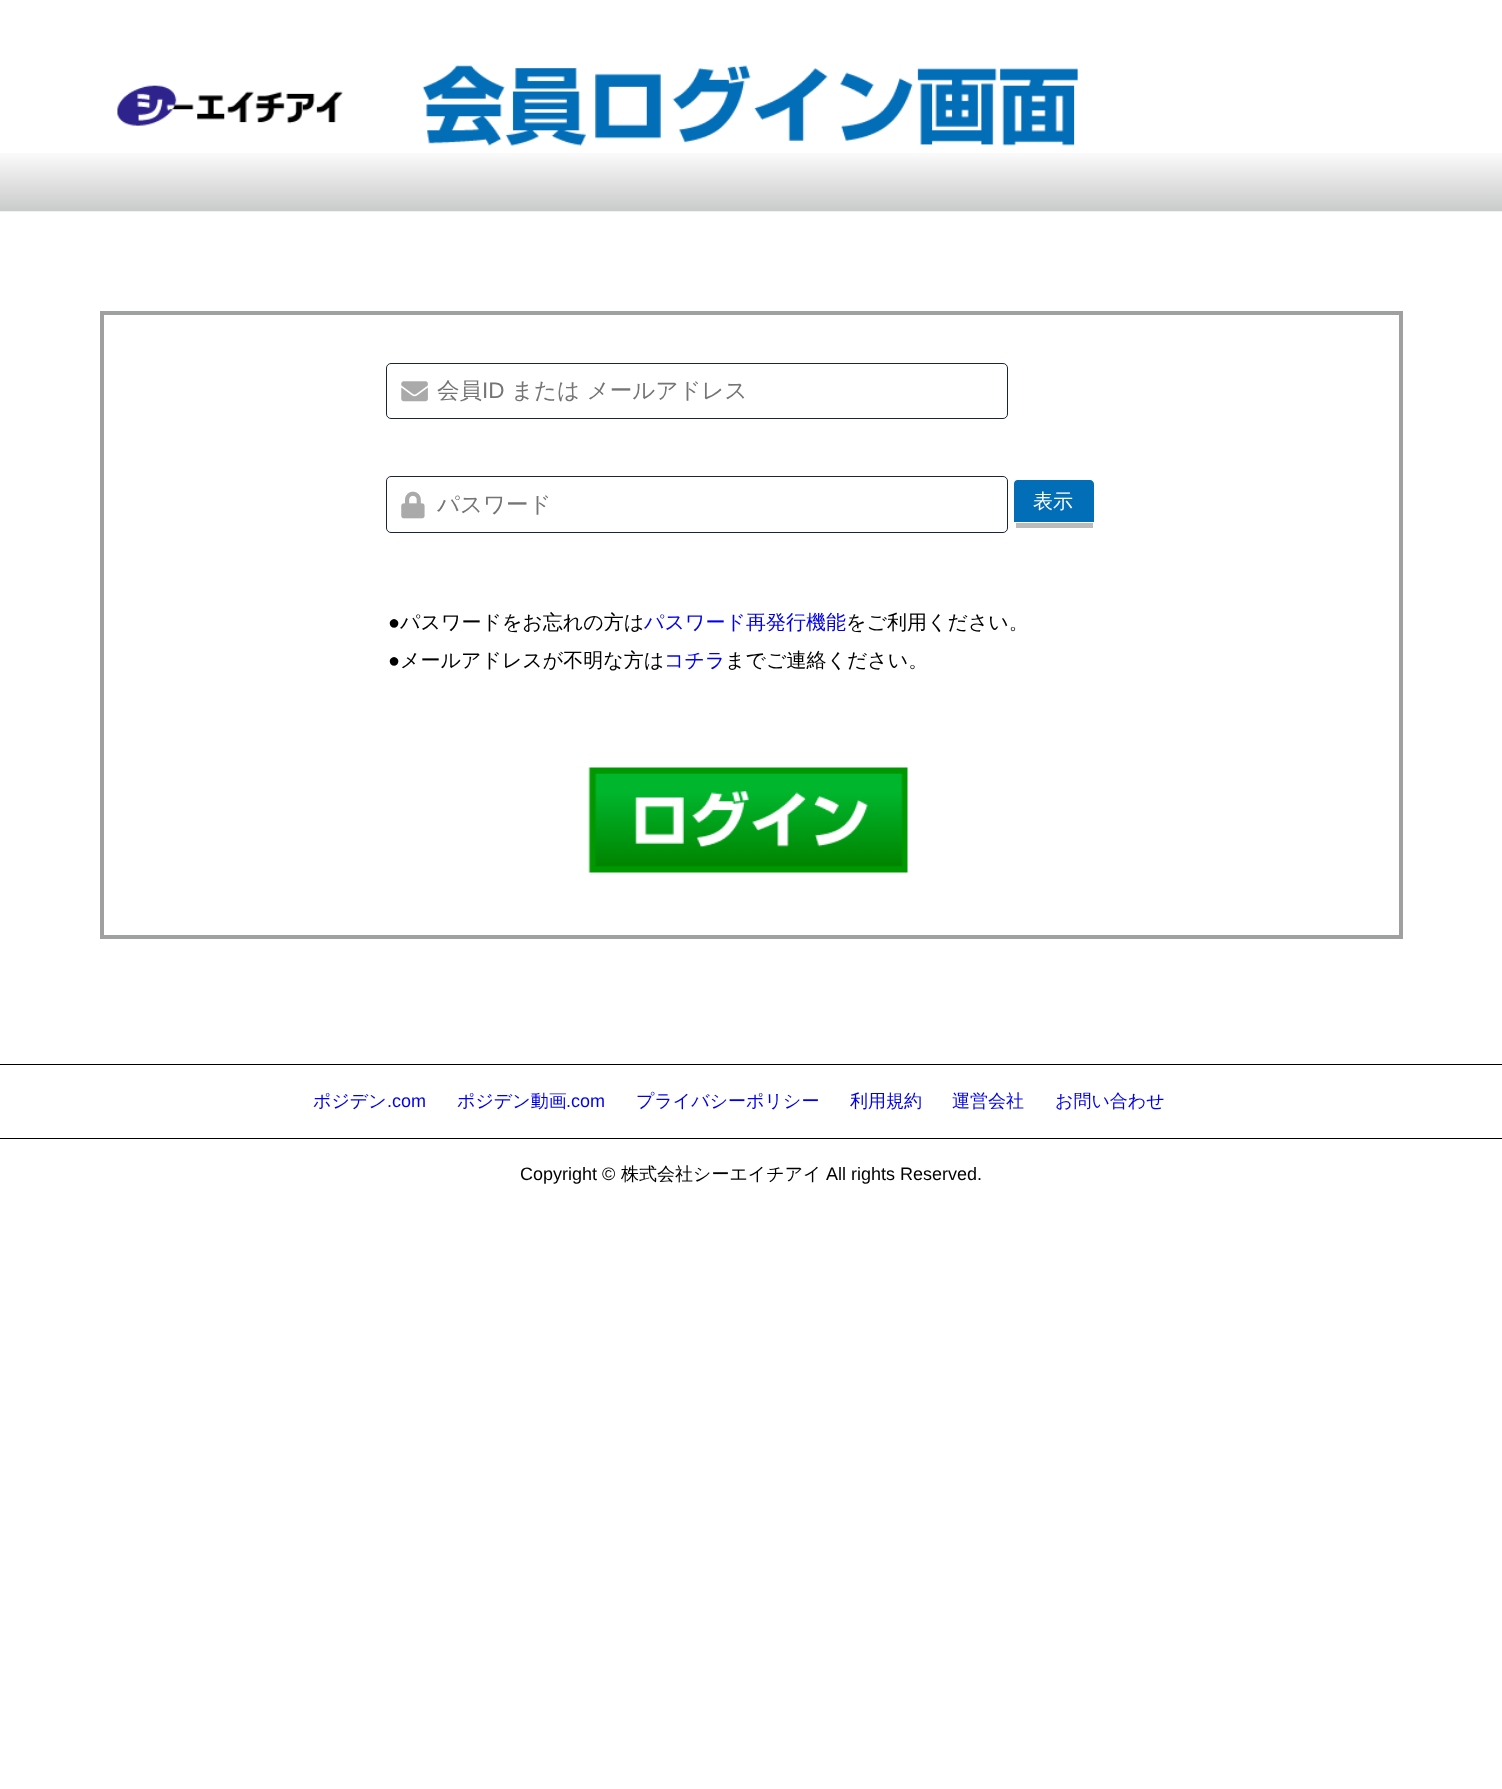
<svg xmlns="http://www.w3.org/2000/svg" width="1502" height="1789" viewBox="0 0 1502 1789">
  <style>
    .t1 { font: 500 22.5px WenQuanYi Zen Hei; fill: #757575; }
    .t2 { font: 22.5px Liberation Sans; fill: #757575; }
    .t3 { font: 500 20px WenQuanYi Zen Hei; fill: #fff; }
    .t4 { font: 20px Liberation Sans; fill: #000; }
    .t5 { font: 500 20px WenQuanYi Zen Hei; fill: #000; }
    .t6 { font: 500 20px WenQuanYi Zen Hei; fill: #00e; }
    .t7 { font: 500 18px WenQuanYi Zen Hei; fill: #00e; }
    .t8 { font: 18px Liberation Sans; fill: #00e; }
    .t9 { font: 18px Liberation Sans; fill: #000; }
    .t10 { font: 500 18px WenQuanYi Zen Hei; fill: #000; }
  </style>
  <rect width="100%" height="100%" fill="#fff"/>
  <image x="0" y="153" width="1502" height="59" href="images/1.png"/>
  <image x="117" y="65" width="961" height="81" href="images/2.png"/>
  <rect x="102" y="313" width="1299" height="624" fill="none" stroke="#9fa0a0" stroke-width="4"/>
  <rect x="386.5" y="363.5" width="621" height="55" rx="4.5" fill="none" stroke="#1b2538"/>
  <image x="401" y="381" width="27" height="21" href="images/3.png"/>
  <text x="437" y="398" class="t1">会員</text>
  <text x="482" y="398" class="t2">ID</text>
  <text x="511" y="398" class="t1">または メールアドレス</text>
  <rect x="386.5" y="476.5" width="621" height="56" rx="4.5" fill="none" stroke="#1b2538"/>
  <image x="401" y="491" width="24" height="28" href="images/4.png"/>
  <text x="437" y="512" class="t1">パスワード</text>
  <path d="M1018 480H1090C1092 480 1094 482 1094 484V522H1014V484C1014 482 1015 480 1018 480Z" fill="#036eb8"/>
  <rect x="1016" y="523" width="77" height="5" fill="#bbb"/>
  <text x="1033" y="508" class="t3">表示</text>
  <text x="388" y="629" class="t4">●</text>
  <text x="400" y="629" class="t5">パスワードをお忘れの方は</text>
  <text x="644" y="629" class="t6">パスワード再発行機能</text>
  <text x="846" y="629" class="t5">をご利用ください。</text>
  <text x="388" y="667" class="t4">●</text>
  <text x="400" y="667" class="t5">メールアドレスが不明な方は</text>
  <text x="664" y="667" class="t6">コチラ</text>
  <text x="725" y="667" class="t5">までご連絡ください。</text>
  <image x="588" y="767" width="320" height="106" href="images/5.png"/>
  <rect x="0" y="1064" width="1502" height="1" fill="#000"/>
  <text x="313" y="1107" class="t7">ポジデン</text>
  <text x="387" y="1107" class="t8">.com</text>
  <text x="457" y="1107" class="t7">ポジデン動画</text>
  <text x="566" y="1107" class="t8">.com</text>
  <text x="636" y="1107" class="t7">プライバシーポリシー</text>
  <text x="850" y="1107" class="t7">利用規約</text>
  <text x="952" y="1107" class="t7">運営会社</text>
  <text x="1055" y="1107" class="t7">お問い合わせ</text>
  <rect x="0" y="1138" width="1502" height="1" fill="#000"/>
  <text x="520" y="1180" class="t9">Copyright ©</text>
  <text x="621" y="1180" class="t10">株式会社シーエイチアイ</text>
  <text x="826" y="1180" class="t9">All rights Reserved.</text>
</svg>
